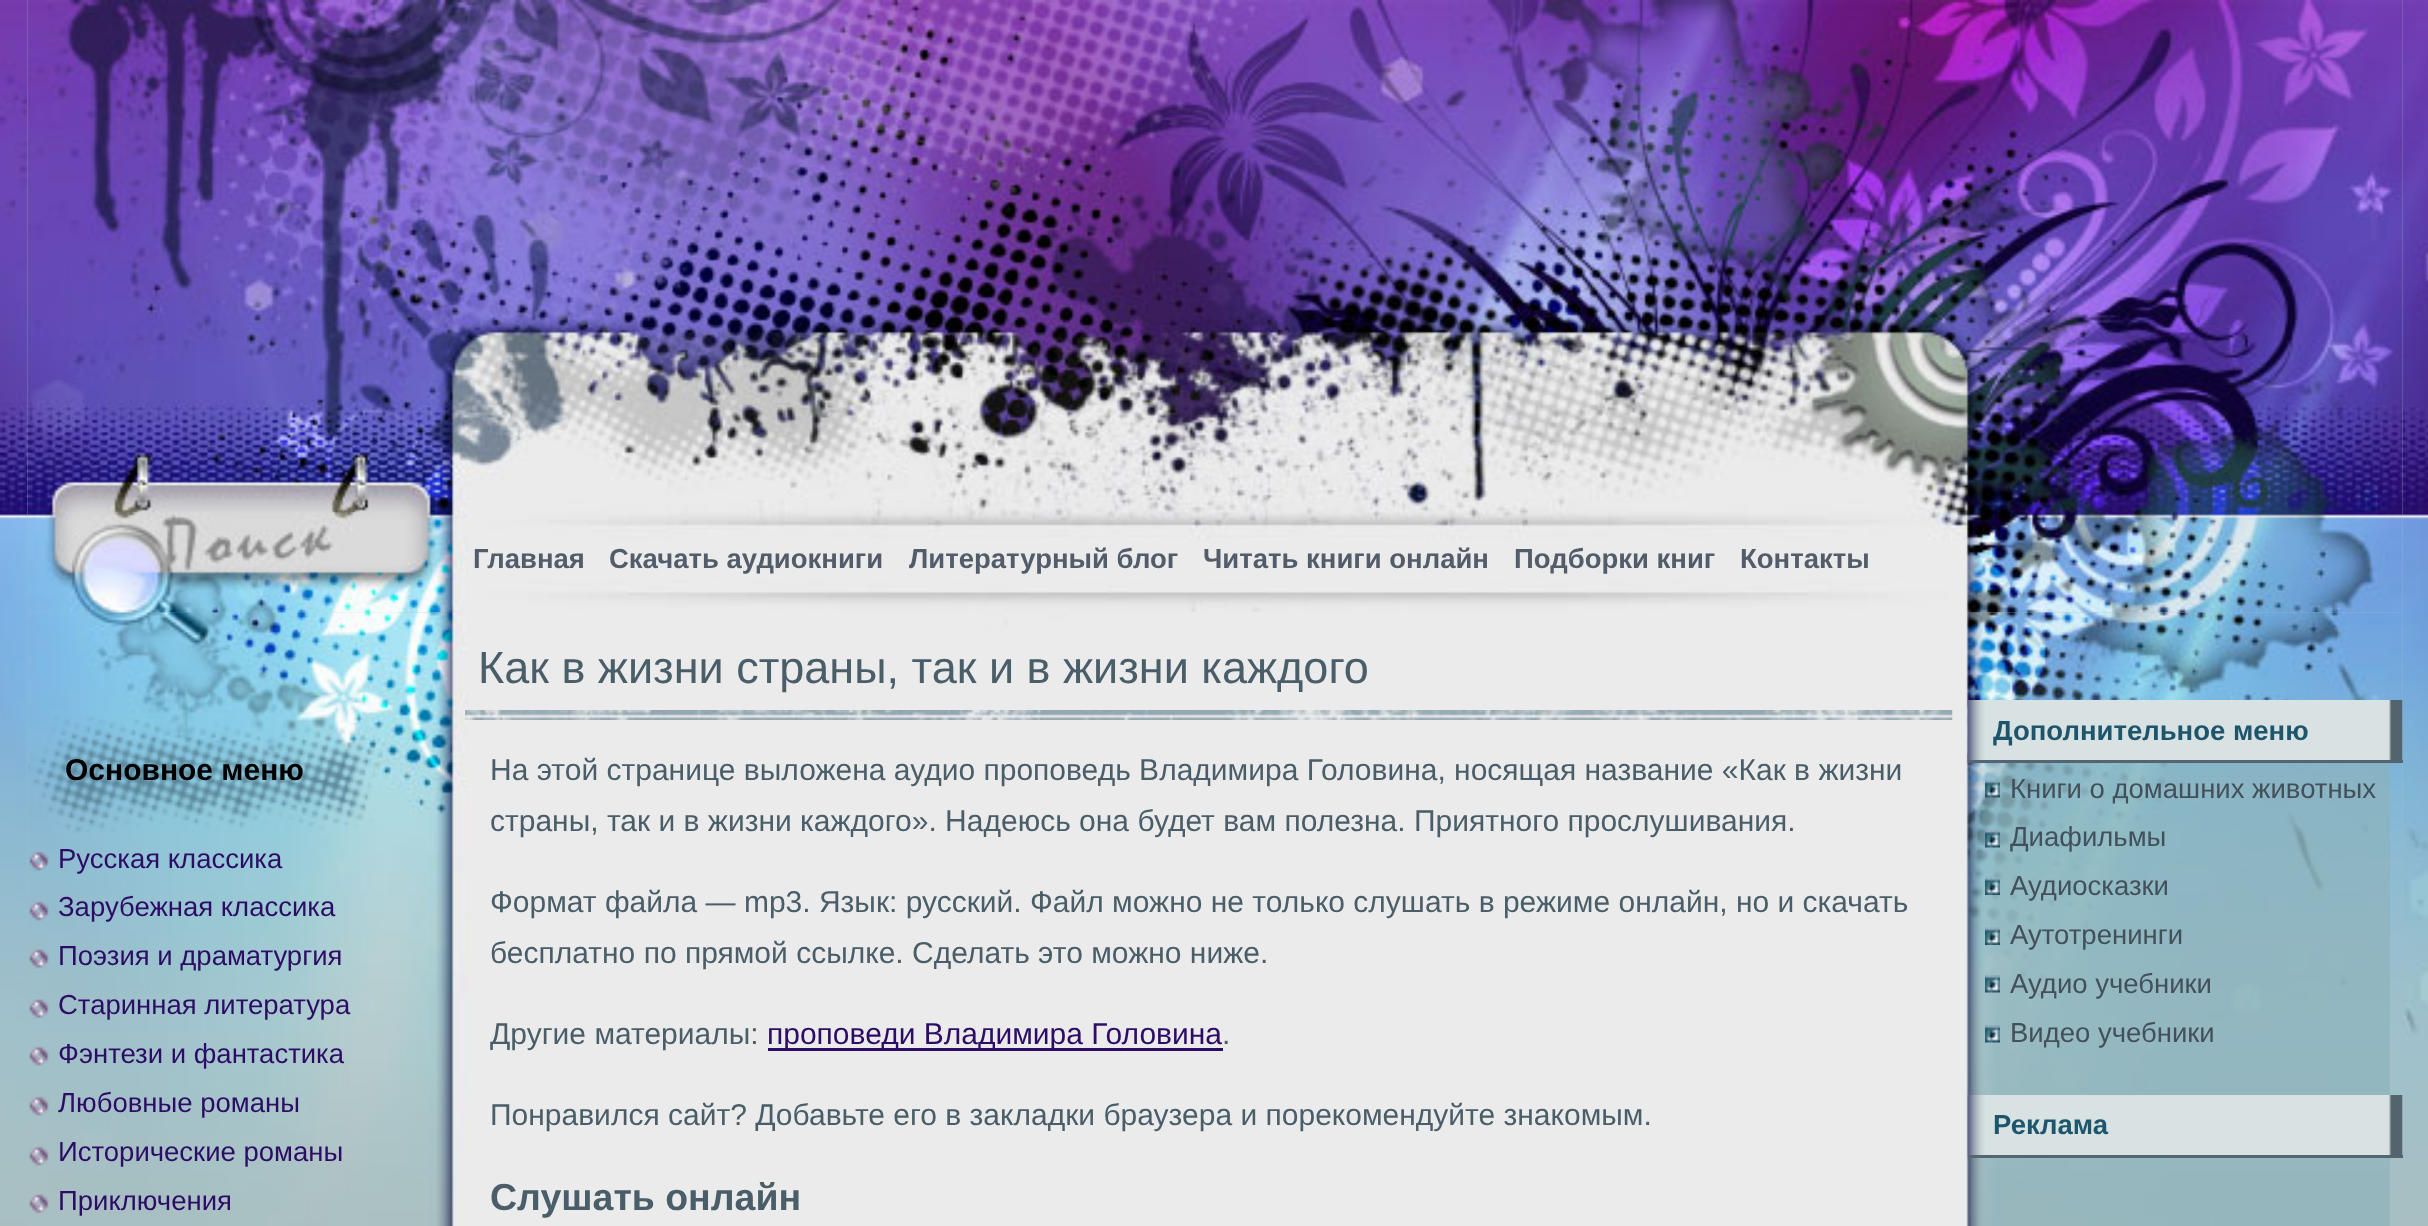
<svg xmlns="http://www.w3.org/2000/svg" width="2428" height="1226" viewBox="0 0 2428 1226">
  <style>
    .t1 { font: bold 27.5px Liberation Sans; fill: #525c6a; }
    .t2 { font: bold 30px Liberation Sans; fill: #000; }
    .t3 { font: 27.5px Liberation Sans; fill: #2d0c66; }
    .t4 { font: 45px Liberation Sans; fill: #4a5e69; }
    .t5 { font: 30px Liberation Sans; fill: #4a5e69; }
    .t6 { font: 30px Liberation Sans; fill: #2d0c66; }
    .t7 { font: bold 37.5px Liberation Sans; fill: #4a5e69; }
    .t8 { font: bold 27.5px Liberation Sans; fill: #1d566c; }
    .t9 { font: 27.5px Liberation Sans; fill: #435059; }
  </style>
  <rect width="100%" height="100%" fill="#fff"/>
  <image x="0" y="1219" width="2428" height="7" href="images/1.png"/>
  <image x="0" y="0" width="2428" height="1219" href="images/2.png"/>
  <image x="27" y="0" width="2376" height="1226" href="images/3.png"/>
  <image x="27" y="0" width="2376" height="613" href="images/4.png"/>
  <image x="72" y="512" width="326" height="101" href="images/5.png"/>
  <text x="473" y="568" class="t1">Главная</text>
  <text x="609" y="568" class="t1">Скачать аудиокниги</text>
  <text x="909" y="568" class="t1">Литературный блог</text>
  <text x="1203" y="568" class="t1">Читать книги онлайн</text>
  <text x="1514" y="568" class="t1">Подборки книг</text>
  <text x="1740" y="568" class="t1">Контакты</text>
  <image x="27" y="612" width="2376" height="614" href="images/6.png"/>
  <image x="28" y="717" width="358" height="116" href="images/7.png"/>
  <text x="65" y="780" class="t2">Основное меню</text>
  <image x="29" y="851" width="20" height="20" href="images/8.png"/>
  <text x="58" y="868" class="t3">Русская классика</text>
  <image x="29" y="901" width="20" height="20" href="images/9.png"/>
  <text x="58" y="916" class="t3">Зарубежная классика</text>
  <image x="29" y="949" width="20" height="20" href="images/10.png"/>
  <text x="58" y="965" class="t3">Поэзия и драматургия</text>
  <image x="29" y="999" width="20" height="20" href="images/11.png"/>
  <text x="58" y="1014" class="t3">Старинная литература</text>
  <image x="29" y="1046" width="20" height="20" href="images/12.png"/>
  <text x="58" y="1063" class="t3">Фэнтези и фантастика</text>
  <image x="29" y="1096" width="20" height="20" href="images/13.png"/>
  <text x="58" y="1112" class="t3">Любовные романы</text>
  <image x="29" y="1146" width="20" height="20" href="images/14.png"/>
  <text x="58" y="1161" class="t3">Исторические романы</text>
  <image x="29" y="1194" width="20" height="20" href="images/15.png"/>
  <text x="58" y="1210" class="t3">Приключения</text>
  <image x="465" y="710" width="1488" height="10" href="images/16.png"/>
  <text x="478" y="683" class="t4">Как в жизни страны, так и в жизни каждого</text>
  <text x="490" y="780" class="t5">На этой странице выложена аудио проповедь Владимира Головина, носящая название «Как в жизни</text>
  <text x="490" y="831" class="t5">страны, так и в жизни каждого». Надеюсь она будет вам полезна. Приятного прослушивания.</text>
  <text x="490" y="912" class="t5">Формат файла — mp3. Язык: русский. Файл можно не только слушать в режиме онлайн, но и скачать</text>
  <text x="490" y="963" class="t5">бесплатно по прямой ссылке. Сделать это можно ниже.</text>
  <text x="490" y="1044" class="t5">Другие материалы:</text>
  <rect x="768" y="1048" width="455" height="3" fill="#2d0c66"/>
  <text x="767" y="1044" class="t6">проповеди Владимира Головина</text>
  <text x="1222" y="1044" class="t5">.</text>
  <text x="490" y="1125" class="t5">Понравился сайт? Добавьте его в закладки браузера и порекомендуйте знакомым.</text>
  <text x="490" y="1210" class="t7">Слушать онлайн</text>
  <image x="1968" y="763" width="422" height="463" href="images/17.png"/>
  <image x="1967" y="700" width="436" height="63" href="images/18.png"/>
  <rect x="1968" y="760" width="435" height="3" fill="#546471"/>
  <text x="1993" y="740" class="t8">Дополнительное меню</text>
  <image x="1985" y="780" width="15" height="18" href="images/19.png"/>
  <text x="2010" y="798" class="t9">Книги о домашних животных</text>
  <image x="1985" y="830" width="15" height="18" href="images/20.png"/>
  <text x="2010" y="846" class="t9">Диафильмы</text>
  <image x="1985" y="877" width="15" height="18" href="images/21.png"/>
  <text x="2010" y="895" class="t9">Аудиосказки</text>
  <image x="1985" y="927" width="15" height="18" href="images/22.png"/>
  <text x="2010" y="944" class="t9">Аутотренинги</text>
  <image x="1985" y="975" width="15" height="18" href="images/23.png"/>
  <text x="2010" y="993" class="t9">Аудио учебники</text>
  <image x="1985" y="1025" width="15" height="18" href="images/24.png"/>
  <text x="2010" y="1042" class="t9">Видео учебники</text>
  <image x="1967" y="1095" width="436" height="63" href="images/25.png"/>
  <rect x="1968" y="1155" width="435" height="3" fill="#546471"/>
  <text x="1993" y="1134" class="t8">Реклама</text>
</svg>
